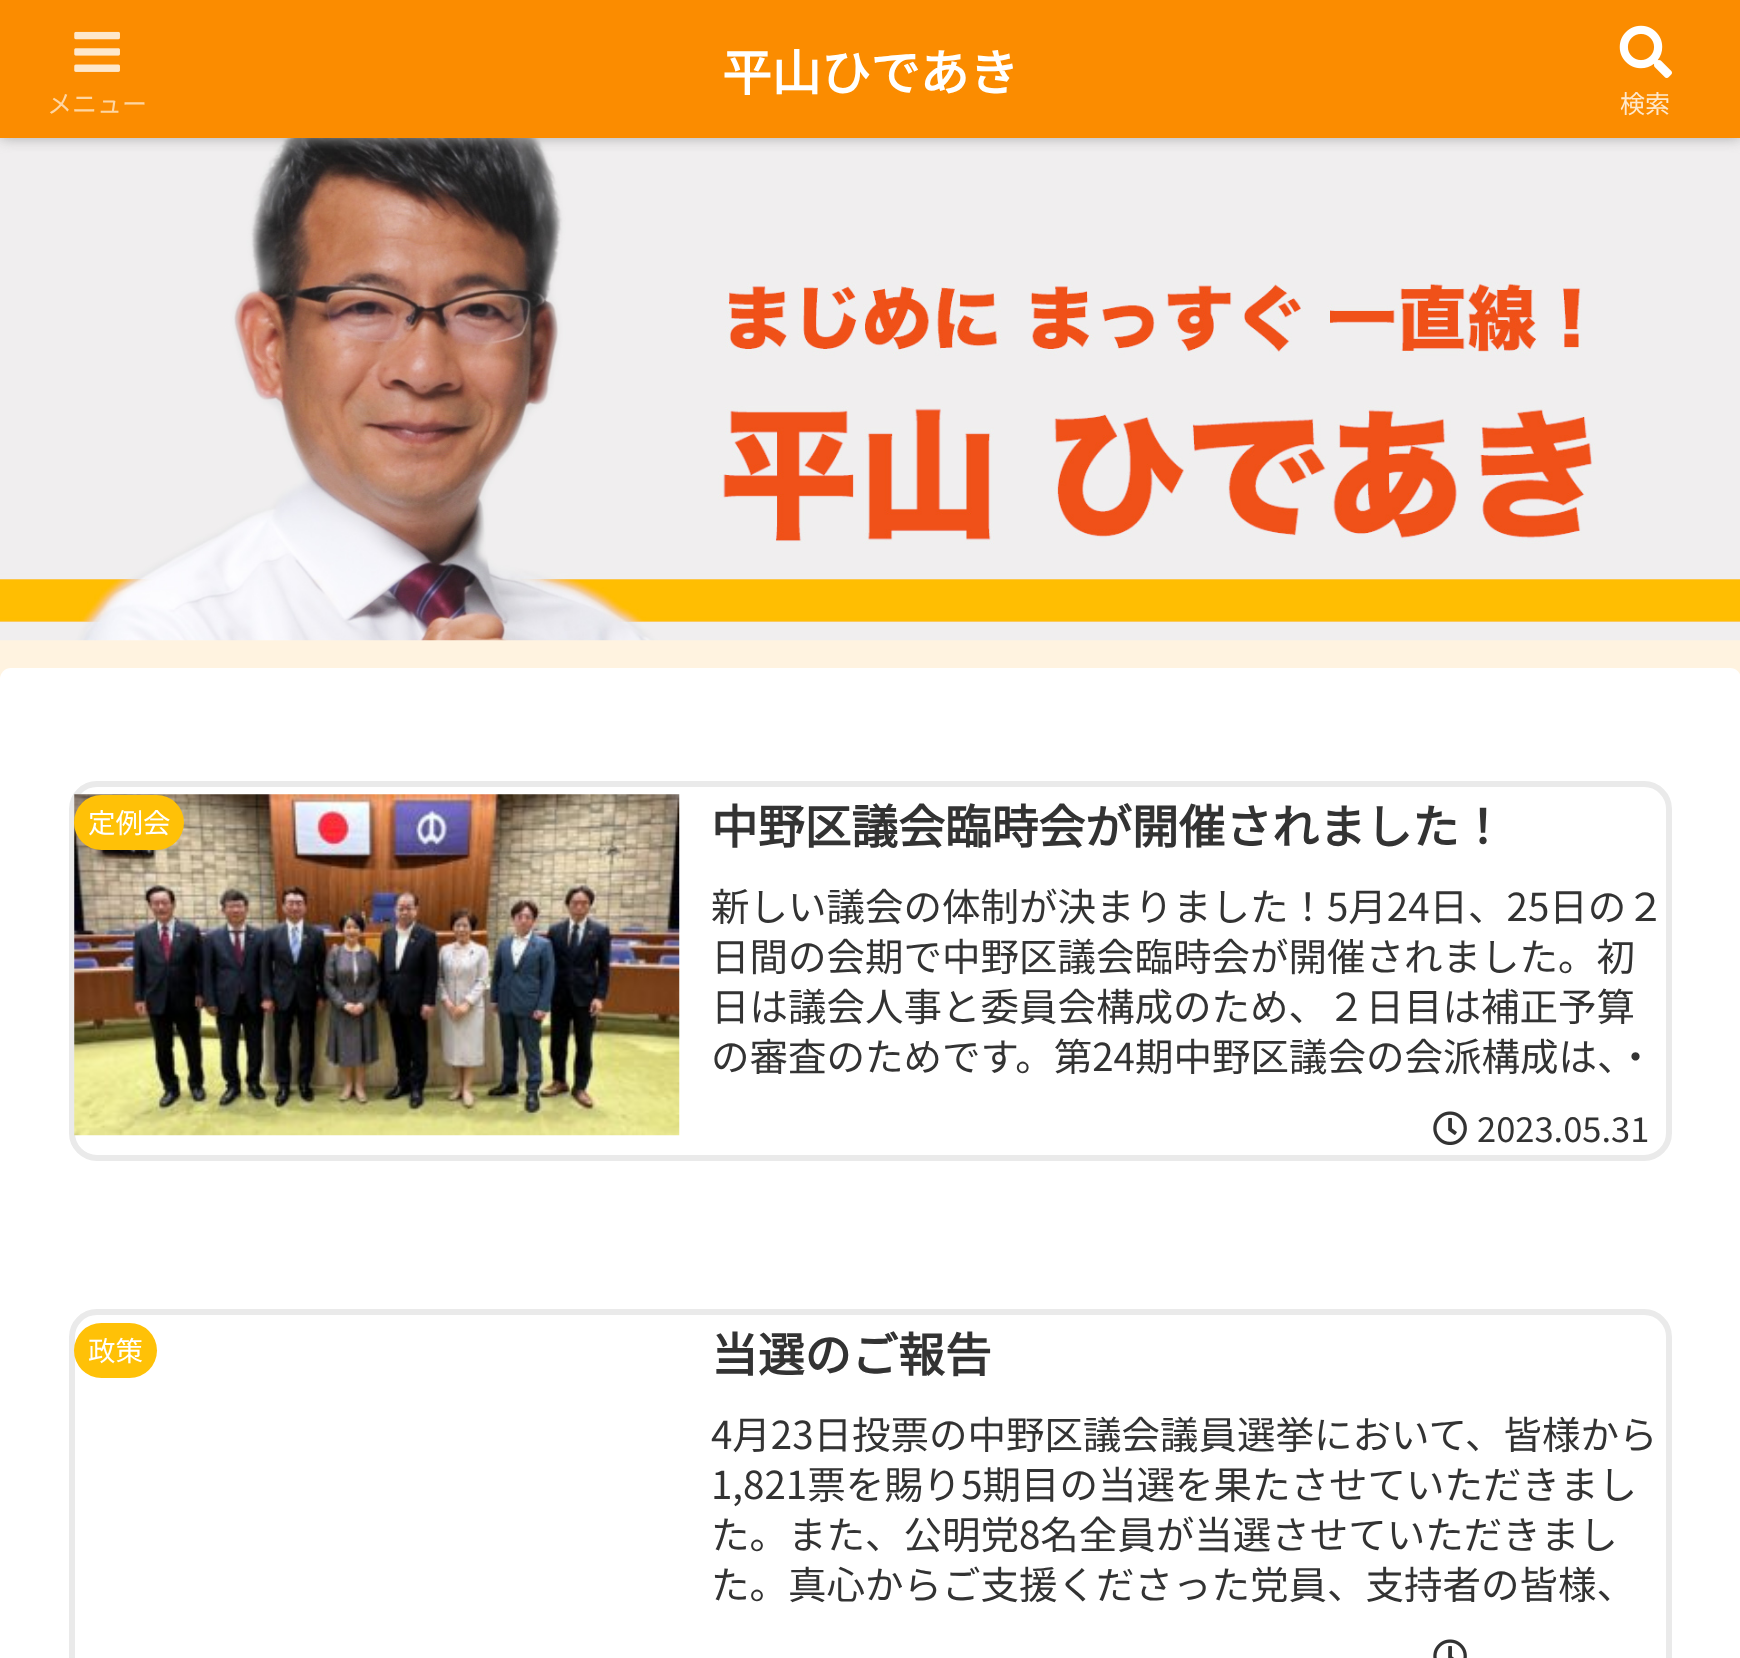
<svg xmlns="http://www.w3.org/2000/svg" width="1740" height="1658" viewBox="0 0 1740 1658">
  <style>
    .t1 { font: bold 49.5px Noto Sans JP; fill: #fff; }
    .t2 { font: 100 25px Noto Sans JP; fill: #fed6a3; }
    .t3 { font: 100 25px Noto Sans JP; fill: #fee8cc; }
    .t4 { font: 100 27.5px Noto Sans JP; fill: #fff; }
    .t5 { font: bold 46.75px Noto Sans JP; fill: #333; }
    .t6 { font: 100 38.5px Noto Sans JP; fill: #333; }
    .t7 { font: 100 34.5px Noto Sans JP; fill: #333; }
  </style>
  <rect width="100%" height="100%" fill="#fff3e0"/>
  <image x="0" y="138" width="1740" height="503" href="images/3.png"/>
  <rect x="0" y="0" width="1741" height="138" fill="#a9a9a9" filter="blur(7px)"/>
  <rect x="0" y="0" width="1740" height="138" fill="#fb8c00"/>
  <text x="722" y="91" class="t1">平山ひであき</text>
  <image x="74" y="31" width="46" height="41" href="images/1.png"/>
  <text x="47" y="113" class="t2">メニュー</text>
  <image x="1619" y="25" width="53" height="53" href="images/2.png"/>
  <text x="1620" y="113" class="t3">検索</text>
  <rect x="0" y="668" width="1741" height="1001" rx="11" fill="#fff"/>
  <rect x="72" y="784" width="1597" height="374" rx="25" fill="none" stroke="#eaeaea" stroke-width="6"/>
  <image x="74" y="794" width="606" height="342" href="images/4.png"/>
  <rect x="74" y="795" width="110" height="55" rx="27.5" fill="#ffc107"/>
  <text x="88" y="833" class="t4">定例会</text>
  <text x="711" y="844" class="t5">中野区議会臨時会が開催されました！</text>
  <text x="711" y="921" class="t6">新しい議会の体制が決まりました！5月24日、25日の２</text>
  <text x="711" y="971" class="t6">日間の会期で中野区議会臨時会が開催されました。初</text>
  <text x="711" y="1021" class="t6">日は議会人事と委員会構成のため、２日目は補正予算</text>
  <text x="711" y="1071" class="t6">の審査のためです。第24期中野区議会の会派構成は、・</text>
  <image x="1433" y="1111" width="34" height="34" href="images/5.png"/>
  <text x="1477" y="1142" class="t7">2023.05.31</text>
  <rect x="72" y="1312" width="1597" height="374" rx="25" fill="none" stroke="#eaeaea" stroke-width="6"/>
  <rect x="74" y="1323" width="83" height="55" rx="27.5" fill="#ffc107"/>
  <text x="88" y="1361" class="t4">政策</text>
  <text x="711" y="1372" class="t5">当選のご報告</text>
  <text x="711" y="1449" class="t6">4月23日投票の中野区議会議員選挙において、皆様から</text>
  <text x="711" y="1499" class="t6">1,821票を賜り5期目の当選を果たさせていただきまし</text>
  <text x="711" y="1549" class="t6">た。また、公明党8名全員が当選させていただきまし</text>
  <text x="711" y="1599" class="t6">た。真心からご支援くださった党員、支持者の皆様、</text>
  <image x="1433" y="1639" width="34" height="19" href="images/6.png"/>
</svg>
